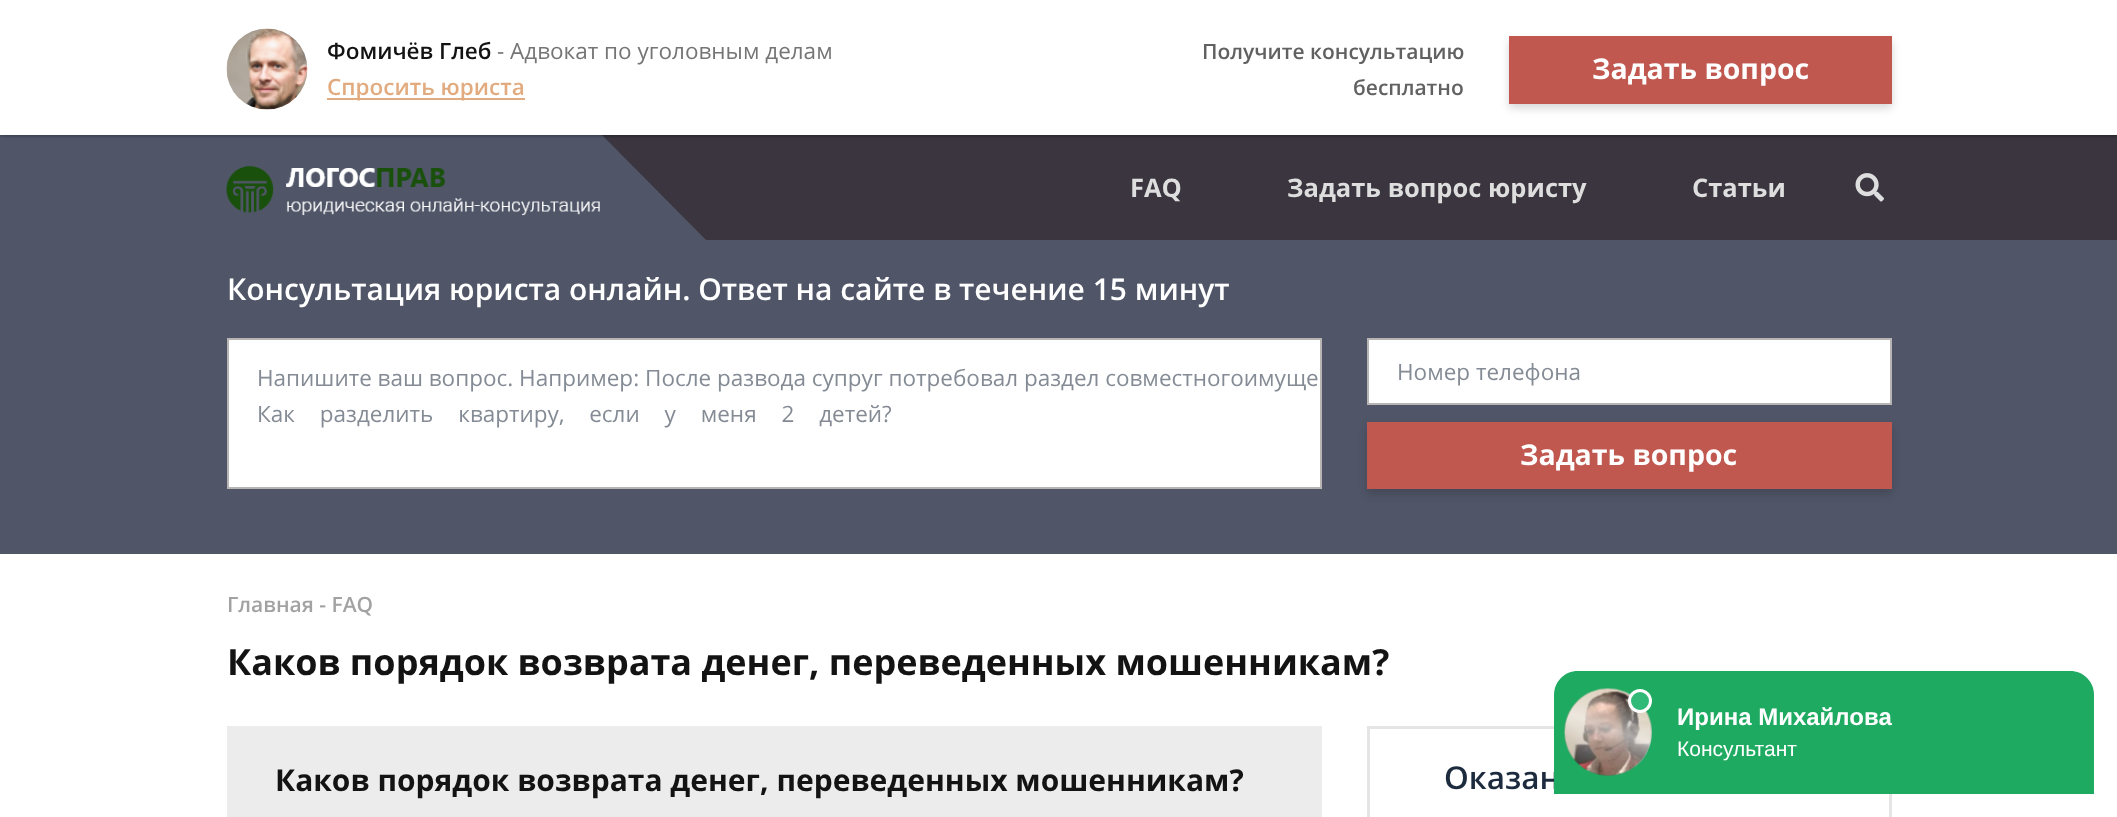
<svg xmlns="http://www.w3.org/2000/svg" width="2117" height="817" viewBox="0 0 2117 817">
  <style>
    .t1 { font: 600 22.5px Open Sans; fill: #131313; }
    .t2 { font: 22.5px Open Sans; fill: #757575; }
    .t3 { font: 600 22.5px Open Sans; fill: #e2ab7f; }
    .t4 { font: 600 21px Open Sans; fill: #616161; }
    .t5 { font: bold 28.5px Open Sans; fill: #fff; }
    .t6 { font: bold 25.5px Open Sans; fill: #dedede; }
    .t7 { font: 600 30px Open Sans; fill: #fff; }
    .t8 { font: 22.5px Open Sans; fill: #848b94; }
    .t9 { font: 600 21px Open Sans; fill: #a2a2a2; }
    .t10 { font: bold 36px Open Sans; fill: #131313; }
    .t11 { font: bold 30px Open Sans; fill: #131313; }
    .t12 { font: 600 31.5px Open Sans; fill: #1d2b3e; }
    .t13 { font: bold 24px Liberation Sans; fill: #fff; }
    .t14 { font: 21px Liberation Sans; fill: #fff; }
  </style>
  <defs>
    <clipPath id="clip1"><rect x="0" y="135" width="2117" height="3"/></clipPath>
    <linearGradient id="g1" gradientUnits="userSpaceOnUse" x1="1623" y1="696" x2="1593" y2="778"><stop offset="0" stop-color="#fff" stop-opacity="0"/><stop offset="0.4" stop-color="#fff" stop-opacity="0.6"/><stop offset="0.6" stop-color="#fff" stop-opacity="0.36"/><stop offset="1" stop-color="#fff" stop-opacity="0"/></linearGradient>
  </defs>
  <rect width="100%" height="100%" fill="#fff"/>
  <rect x="602" y="135" width="1515" height="105" fill="#3a353f"/>
  <rect x="0" y="135" width="602" height="105" fill="#505668"/>
  <path d="M602 240V135L706 240Z" fill="#505668"/>
  <g clip-path="url(#clip1)">
    <rect x="0" y="0" width="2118" height="135" fill="#00000080" filter="blur(2px)"/>
  </g>
  <image x="226" y="28" width="82" height="82" href="images/1.png"/>
  <text x="327" y="59" class="t1">Фомичёв Глеб</text>
  <text x="497" y="59" class="t2">- Адвокат по уголовным делам</text>
  <rect x="327" y="98" width="198" height="2" fill="#e2ab7f"/>
  <text x="327" y="95" class="t3">Спросить юриста</text>
  <text x="1202" y="59" class="t4">Получите консультацию</text>
  <text x="1353" y="95" class="t4">бесплатно</text>
  <rect x="1509" y="41" width="383" height="67" fill="#00000029" filter="blur(4.5px)"/>
  <rect x="1509" y="36" width="383" height="68" fill="#c05850"/>
  <text x="1592" y="79" class="t5">Задать вопрос</text>
  <image x="226" y="166" width="374" height="50" href="images/2.png"/>
  <text x="1130" y="197" class="t6">FAQ</text>
  <text x="1287" y="197" class="t6">Задать вопрос юристу</text>
  <text x="1692" y="197" class="t6">Статьи</text>
  <image x="1855" y="173" width="29" height="29" href="images/3.png"/>
  <rect x="0" y="240" width="2117" height="314" fill="#505668"/>
  <text x="227" y="300" class="t7">Консультация юриста онлайн. Ответ на сайте в течение 15 минут</text>
  <rect x="228" y="339" width="1093" height="149" fill="#fff" stroke="#b8b4b4" stroke-width="2"/>
  <text x="257" y="386" class="t8">Напишите ваш вопрос. Например: После развода супруг потребовал раздел совместногоимуще</text>
  <text x="257" y="422" word-spacing="19" class="t8">Как разделить квартиру, если у меня 2 детей?</text>
  <rect x="1368" y="339" width="523" height="65" fill="#fff" stroke="#b8b4b4" stroke-width="2"/>
  <text x="1397" y="380" class="t8">Номер телефона</text>
  <rect x="1367" y="426" width="525" height="68" fill="#00000029" filter="blur(4.5px)"/>
  <rect x="1367" y="422" width="525" height="67" fill="#c05850"/>
  <text x="1520" y="465" class="t5">Задать вопрос</text>
  <text x="227" y="612" class="t9">Главная - FAQ</text>
  <text x="227" y="675" class="t10">Каков порядок возврата денег, переведенных мошенникам?</text>
  <rect x="227" y="726" width="1095" height="91" fill="#ececec"/>
  <text x="275" y="791" class="t11">Каков порядок возврата денег, переведенных мошенникам?</text>
  <rect x="1368.5" y="727.5" width="522" height="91" fill="none" stroke="#e5e5e5" stroke-width="3"/>
  <text x="1444" y="789" class="t12">Оказан</text>
  <path d="M1578 671H2070C2083.5 671 2094 681.5 2094 695V794H1554V695C1554 681.5 1564.5 671 1578 671Z" fill="#1eaa61"/>
  <circle cx="1608.5" cy="732.5" r="43.5" fill="#178049"/>
  <image x="1564" y="688" width="88" height="88" href="images/4.png"/>
  <path d="M1603 689L1640 703C1648 710 1652 721 1652 732C1652 757 1633 776 1608 776C1584 776 1565 757 1565 732C1565 710 1582 692 1603 689Z" fill="url(#g1)"/>
  <circle cx="1640" cy="701" r="10.5" fill="#31b978" stroke="#fff" stroke-width="3"/>
  <text x="1677" y="725" class="t13">Ирина Михайлова</text>
  <text x="1677" y="756" class="t14">Консультант</text>
</svg>
